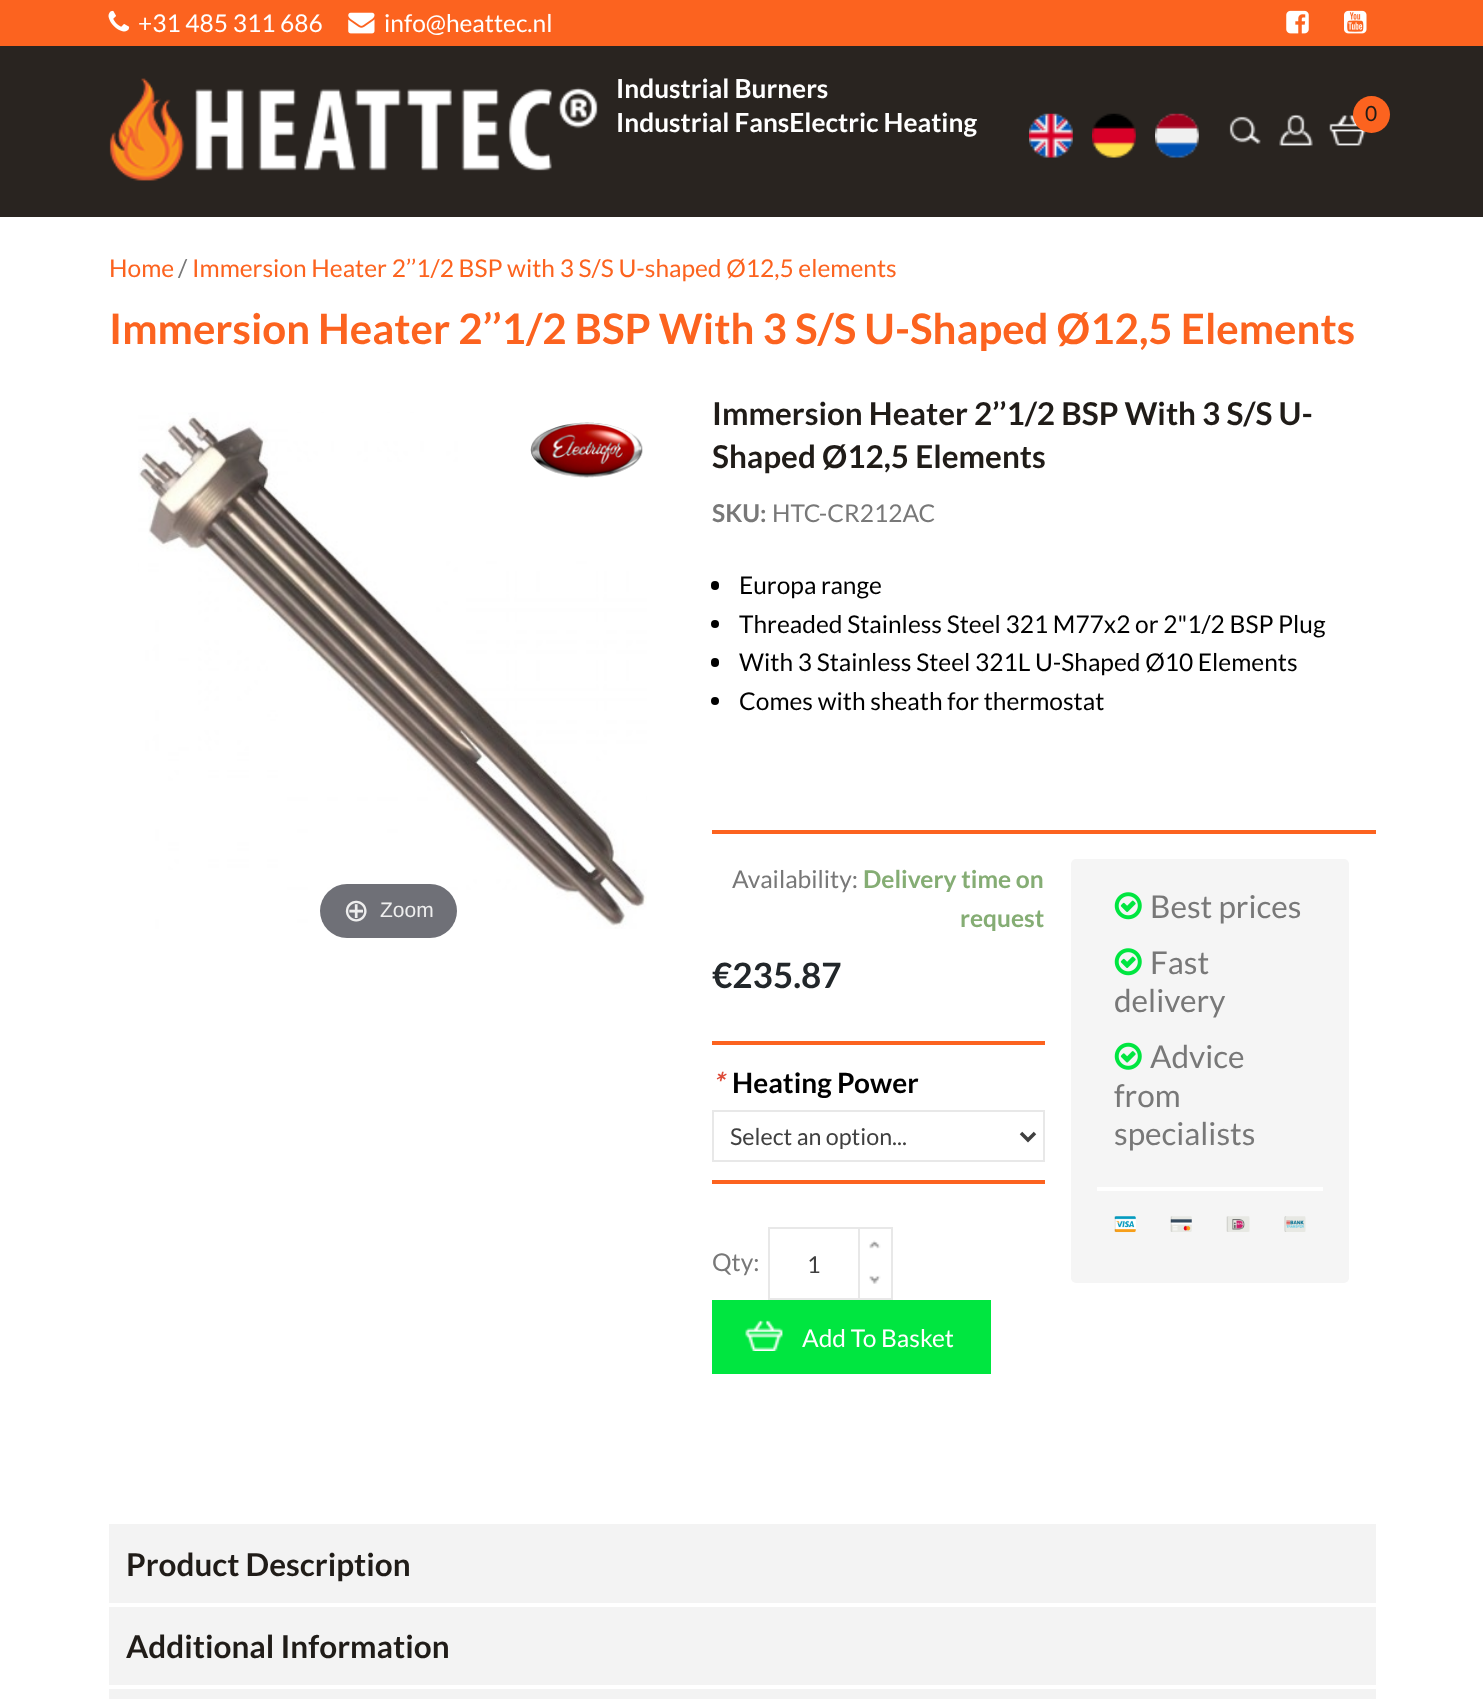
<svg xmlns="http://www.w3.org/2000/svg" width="1483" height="1699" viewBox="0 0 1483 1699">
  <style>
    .t1 { font: 24.5px Lato; fill: #fff; }
    .t2 { font: bold 26.25px Lato; fill: #fff; }
    .t3 { font: 21px Lato; fill: #201c18; }
    .t4 { font: 24.5px Lato; fill: #fc631f; }
    .t5 { font: 24.5px Lato; fill: #787878; }
    .t6 { font: bold 42px Lato; fill: #fc631f; }
    .t7 { font: 31.5px DejaVu Sans; fill: #eee; }
    .t8 { font: 21px Liberation Sans; fill: #eee; }
    .t9 { font: bold 31.5px Lato; fill: #201c18; }
    .t10 { font: bold 24.5px Lato; fill: #787878; }
    .t11 { font: 24.5px Lato; fill: #000; }
    .t12 { font: bold 24.5px Lato; fill: #85ad74; }
    .t13 { font: bold 35px Lato; fill: #22272a; }
    .t14 { font: italic bold 28px Lato; fill: #dd4b39; }
    .t15 { font: bold 28px Lato; fill: #000; }
    .t16 { font: 23.25px Lato; fill: #404040; }
    .t17 { font: 31.5px Lato; fill: #787878; }
  </style>
  <rect width="100%" height="100%" fill="#fff"/>
  <rect x="0" y="46" width="1483" height="171" fill="#292420"/>
  <rect x="0" y="0" width="1483" height="46" fill="#fc631f"/>
  <image x="108" y="10" width="22" height="22" href="images/1.png"/>
  <text x="138" y="32" class="t1">+31 485 311 686</text>
  <image x="348" y="12" width="27" height="22" href="images/2.png"/>
  <text x="384" y="32" class="t1">info@heattec.nl</text>
  <image x="1286" y="10" width="23" height="24" href="images/3.png"/>
  <image x="1344" y="10" width="23" height="24" href="images/4.png"/>
  <image x="109" y="78" width="489" height="103" href="images/5.png"/>
  <text x="616" y="98" class="t2">Industrial Burners</text>
  <text x="616" y="132" class="t2">Industrial FansElectric Heating</text>
  <image x="1029" y="113" width="44" height="45" href="images/6.png"/>
  <image x="1092" y="113" width="44" height="45" href="images/7.png"/>
  <image x="1155" y="113" width="44" height="45" href="images/8.png"/>
  <image x="1229" y="116" width="32" height="28" href="images/9.png"/>
  <image x="1279" y="114" width="34" height="32" href="images/10.png"/>
  <image x="1329" y="115" width="37" height="31" href="images/11.png"/>
  <circle cx="1371.5" cy="114.5" r="18.5" fill="#fc631f"/>
  <text x="1365" y="121" class="t3">0</text>
  <text x="109" y="277" class="t4">Home</text>
  <text x="178" y="277" class="t5">/</text>
  <text x="192" y="277" class="t4">Immersion Heater 2’’1/2 BSP with 3 S/S U-shaped Ø12,5 elements</text>
  <text x="109" y="344" class="t6">Immersion Heater 2’’1/2 BSP With 3 S/S U-Shaped Ø12,5 Elements</text>
  <image x="138" y="412" width="509" height="517" href="images/13.png"/>
  <image x="530" y="422" width="113" height="56" href="images/12.png"/>
  <rect x="320" y="884" width="137" height="54" rx="27" fill="#6f7077"/>
  <text x="343" y="921" class="t7">⊕</text>
  <text x="380" y="917" class="t8">Zoom</text>
  <text x="712" y="425" class="t9">Immersion Heater 2’’1/2 BSP With 3 S/S U-</text>
  <text x="712" y="468" class="t9">Shaped Ø12,5 Elements</text>
  <text x="712" y="522" class="t10">SKU:</text>
  <text x="772" y="522" class="t5">HTC-CR212AC</text>
  <rect x="712" y="830" width="664" height="4" fill="#fc631f"/>
  <rect x="711" y="581" width="8" height="9" rx="4" fill="#000"/>
  <text x="739" y="594" class="t11">Europa range</text>
  <circle cx="715" cy="624" r="4" fill="#000"/>
  <text x="739" y="633" class="t11">Threaded Stainless Steel 321 M77x2 or 2"1/2 BSP Plug</text>
  <rect x="711" y="658" width="8" height="9" rx="4" fill="#000"/>
  <text x="739" y="671" class="t11">With 3 Stainless Steel 321L U-Shaped Ø10 Elements</text>
  <circle cx="715" cy="701" r="4" fill="#000"/>
  <text x="739" y="710" class="t11">Comes with sheath for thermostat</text>
  <text x="732" y="888" class="t5">Availability:</text>
  <text x="863" y="888" class="t12">Delivery time on</text>
  <text x="960" y="927" class="t12">request</text>
  <text x="712" y="988" class="t13">€235.87</text>
  <rect x="712" y="1041" width="333" height="4" fill="#fc631f"/>
  <rect x="712" y="1180" width="333" height="4" fill="#fc631f"/>
  <text x="712" y="1093" class="t14">*</text>
  <text x="732" y="1093" class="t15">Heating Power</text>
  <rect x="713" y="1111" width="331" height="50" fill="none" stroke="#e8e8e8" stroke-width="2"/>
  <path d="M1021 1133L1028 1140L1035 1133" fill="none" stroke="#404040" stroke-width="3.5"/>
  <text x="730" y="1145" class="t16">Select an option...</text>
  <text x="712" y="1271" class="t5">Qty:</text>
  <rect x="769" y="1228" width="123" height="71" fill="none" stroke="#e8e8e8" stroke-width="2"/>
  <rect x="858" y="1229" width="2" height="70" fill="#e8e8e8"/>
  <text x="807" y="1273" class="t16">1</text>
  <image x="869" y="1240" width="12" height="9" href="images/14.png"/>
  <image x="869" y="1275" width="12" height="9" href="images/15.png"/>
  <rect x="712" y="1300" width="279" height="74" fill="#00e640"/>
  <image x="745" y="1320" width="38" height="31" href="images/16.png"/>
  <text x="802" y="1347" class="t1">Add To Basket</text>
  <rect x="1071" y="859" width="278" height="424" rx="5" fill="#f5f5f5"/>
  <rect x="1097" y="1187" width="226" height="4" fill="#fff"/>
  <image x="1114" y="892" width="28" height="28" href="images/17.png"/>
  <text x="1150" y="918" class="t17">Best prices</text>
  <image x="1114" y="948" width="28" height="28" href="images/17.png"/>
  <text x="1150" y="974" class="t17">Fast</text>
  <text x="1114" y="1012" class="t17">delivery</text>
  <image x="1114" y="1042" width="28" height="28" href="images/18.png"/>
  <text x="1150" y="1068" class="t17">Advice</text>
  <text x="1114" y="1107" class="t17">from</text>
  <text x="1114" y="1145" class="t17">specialists</text>
  <image x="1114" y="1216" width="22" height="17" href="images/19.png"/>
  <image x="1170" y="1216" width="22" height="16" href="images/20.png"/>
  <image x="1226" y="1216" width="24" height="16" href="images/21.png"/>
  <image x="1284" y="1216" width="22" height="16" href="images/22.png"/>
  <rect x="109" y="1524" width="1267" height="79" fill="#f3f3f3"/>
  <text x="126" y="1576" class="t9">Product Description</text>
  <rect x="109" y="1607" width="1267" height="78" fill="#f3f3f3"/>
  <text x="126" y="1658" class="t9">Additional Information</text>
  <rect x="109" y="1689" width="1267" height="10" fill="#f3f3f3"/>
</svg>
